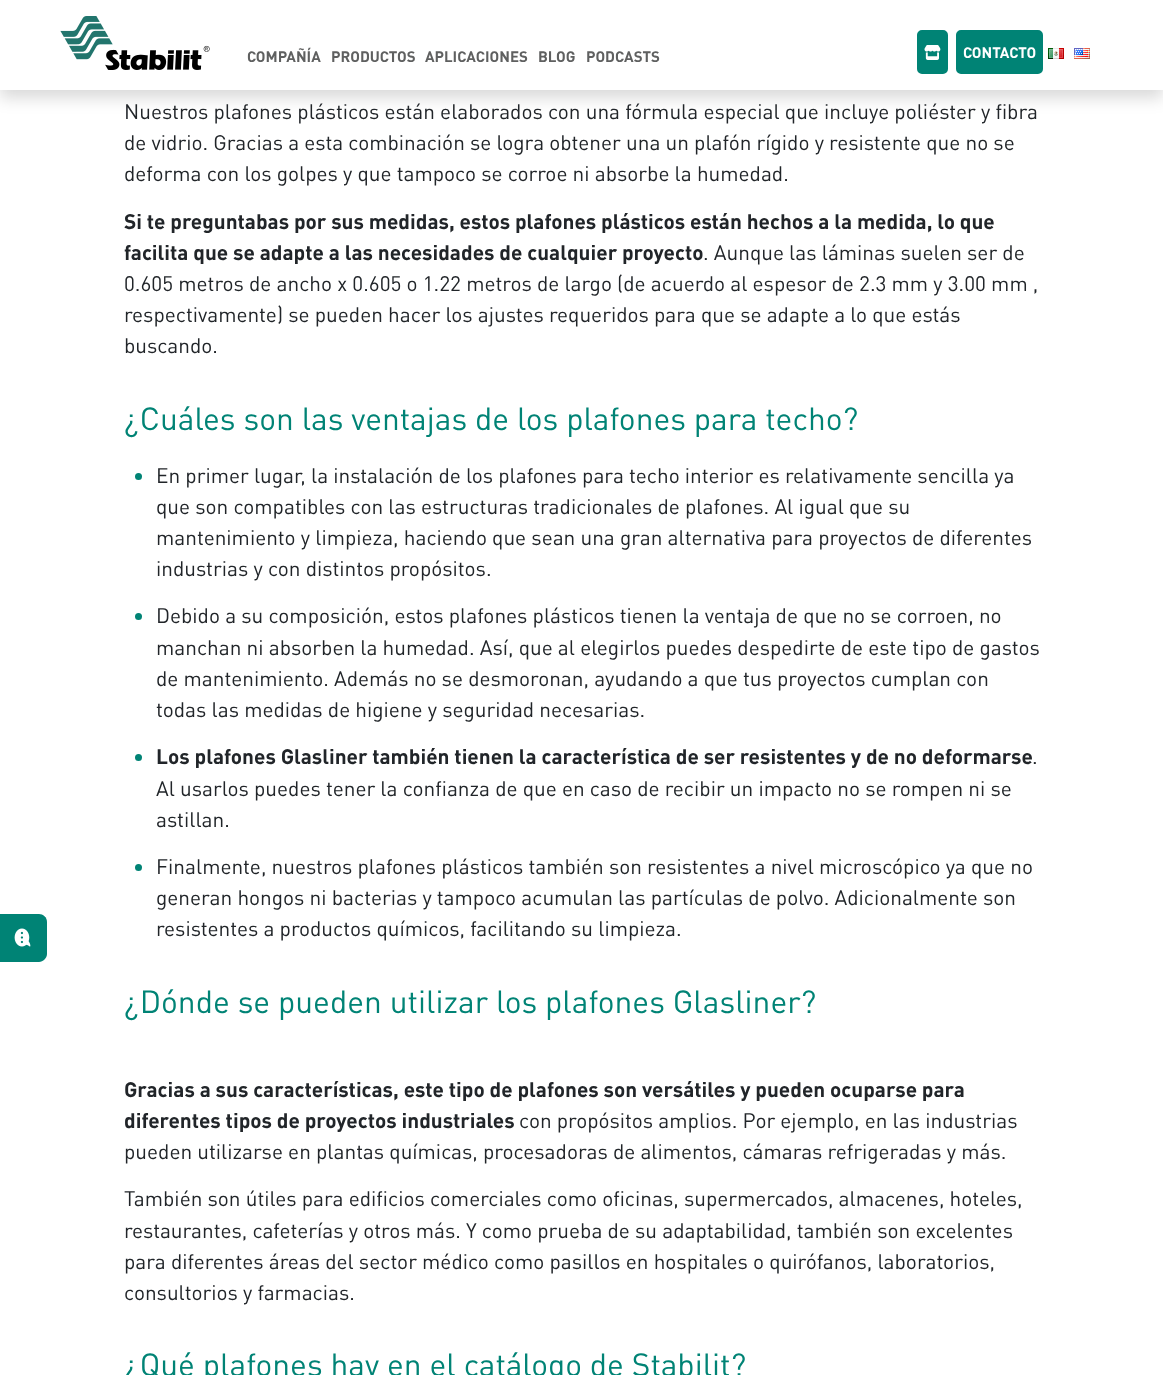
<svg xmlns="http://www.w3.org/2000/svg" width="1163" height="1375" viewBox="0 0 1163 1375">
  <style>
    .t1 { font: bold 15px DIN; fill: #5f6060; }
    .t2 { font: bold 15px DIN; fill: #fff; }
    .t3 { font: 20.8px DIN; fill: #212529; }
    .t4 { font: bold 20.8px DIN; fill: #212529; }
    .t5 { font: 31.7px DIN; fill: #008375; }
  </style>
  <rect width="100%" height="100%" fill="#fff"/>
  <rect x="0" y="8" width="1163" height="90" fill="#00000026" filter="blur(8px)"/>
  <rect x="0" y="0" width="1163" height="90" fill="#fff"/>
  <image x="60" y="16" width="150" height="54" href="images/1.png"/>
  <text x="247" y="62" class="t1">COMPAÑÍA</text>
  <text x="331" y="62" class="t1">PRODUCTOS</text>
  <text x="425" y="62" class="t1">APLICACIONES</text>
  <text x="538" y="62" class="t1">BLOG</text>
  <text x="586" y="62" class="t1">PODCASTS</text>
  <rect x="918" y="31" width="29" height="42" rx="4" fill="#008375" stroke="#008375" stroke-width="2"/>
  <image x="924" y="45" width="17" height="15" href="images/2.png"/>
  <rect x="957" y="31" width="85" height="42" rx="4" fill="#008375" stroke="#008375" stroke-width="2"/>
  <text x="963" y="58" class="t2">CONTACTO</text>
  <image x="1048" y="48" width="16" height="11" href="images/3.png"/>
  <image x="1074" y="48" width="16" height="11" href="images/4.png"/>
  <path d="M-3 962V914H39C43 914 47 917 47 922V954C47 958 43 962 39 962Z" fill="#008375"/>
  <image x="14" y="928" width="17" height="19" href="images/5.png"/>
  <text x="124" y="119" class="t3">Nuestros plafones plásticos están elaborados con una fórmula especial que incluye poliéster y fibra</text>
  <text x="124" y="150" class="t3">de vidrio. Gracias a esta combinación se logra obtener una un plafón rígido y resistente que no se</text>
  <text x="124" y="181" class="t3">deforma con los golpes y que tampoco se corroe ni absorbe la humedad.</text>
  <text x="124" y="229" class="t4">Si te preguntabas por sus medidas, estos plafones plásticos están hechos a la medida, lo que</text>
  <text x="124" y="260" class="t4">facilita que se adapte a las necesidades de cualquier proyecto</text>
  <text x="703" y="260" class="t3">. Aunque las láminas suelen ser de</text>
  <text x="124" y="291" class="t3">0.605 metros de ancho x 0.605 o 1.22 metros de largo (de acuerdo al espesor de 2.3 mm y 3.00 mm ,</text>
  <text x="124" y="322" class="t3">respectivamente) se pueden hacer los ajustes requeridos para que se adapte a lo que estás</text>
  <text x="124" y="353" class="t3">buscando.</text>
  <text x="124" y="430" class="t5">¿Cuáles son las ventajas de los plafones para techo?</text>
  <circle cx="138.5" cy="476.5" r="3.5" fill="#008375"/>
  <text x="156" y="483" class="t3">En primer lugar, la instalación de los plafones para techo interior es relativamente sencilla ya</text>
  <text x="156" y="514" class="t3">que son compatibles con las estructuras tradicionales de plafones. Al igual que su</text>
  <text x="156" y="545" class="t3">mantenimiento y limpieza, haciendo que sean una gran alternativa para proyectos de diferentes</text>
  <text x="156" y="576" class="t3">industrias y con distintos propósitos.</text>
  <circle cx="138.5" cy="616.5" r="3.5" fill="#008375"/>
  <text x="156" y="623" class="t3">Debido a su composición, estos plafones plásticos tienen la ventaja de que no se corroen, no</text>
  <text x="156" y="655" class="t3">manchan ni absorben la humedad. Así, que al elegirlos puedes despedirte de este tipo de gastos</text>
  <text x="156" y="686" class="t3">de mantenimiento. Además no se desmoronan, ayudando a que tus proyectos cumplan con</text>
  <text x="156" y="717" class="t3">todas las medidas de higiene y seguridad necesarias.</text>
  <circle cx="138.5" cy="757.5" r="3.5" fill="#008375"/>
  <text x="156" y="764" class="t4">Los plafones Glasliner también tienen la característica de ser resistentes y de no deformarse</text>
  <text x="1032" y="764" class="t3">.</text>
  <text x="156" y="796" class="t3">Al usarlos puedes tener la confianza de que en caso de recibir un impacto no se rompen ni se</text>
  <text x="156" y="827" class="t3">astillan.</text>
  <circle cx="138.5" cy="867.5" r="3.5" fill="#008375"/>
  <text x="156" y="874" class="t3">Finalmente, nuestros plafones plásticos también son resistentes a nivel microscópico ya que no</text>
  <text x="156" y="905" class="t3">generan hongos ni bacterias y tampoco acumulan las partículas de polvo. Adicionalmente son</text>
  <text x="156" y="936" class="t3">resistentes a productos químicos, facilitando su limpieza.</text>
  <text x="124" y="1013" class="t5">¿Dónde se pueden utilizar los plafones Glasliner?</text>
  <text x="124" y="1097" class="t4">Gracias a sus características, este tipo de plafones son versátiles y pueden ocuparse para</text>
  <text x="124" y="1128" class="t4">diferentes tipos de proyectos industriales</text>
  <text x="519" y="1128" class="t3">con propósitos amplios. Por ejemplo, en las industrias</text>
  <text x="124" y="1159" class="t3">pueden utilizarse en plantas químicas, procesadoras de alimentos, cámaras refrigeradas y más.</text>
  <text x="124" y="1206" class="t3">También son útiles para edificios comerciales como oficinas, supermercados, almacenes, hoteles,</text>
  <text x="124" y="1238" class="t3">restaurantes, cafeterías y otros más. Y como prueba de su adaptabilidad, también son excelentes</text>
  <text x="124" y="1269" class="t3">para diferentes áreas del sector médico como pasillos en hospitales o quirófanos, laboratorios,</text>
  <text x="124" y="1300" class="t3">consultorios y farmacias.</text>
  <text x="124" y="1376" class="t5">¿Qué plafones hay en el catálogo de Stabilit?</text>
</svg>
